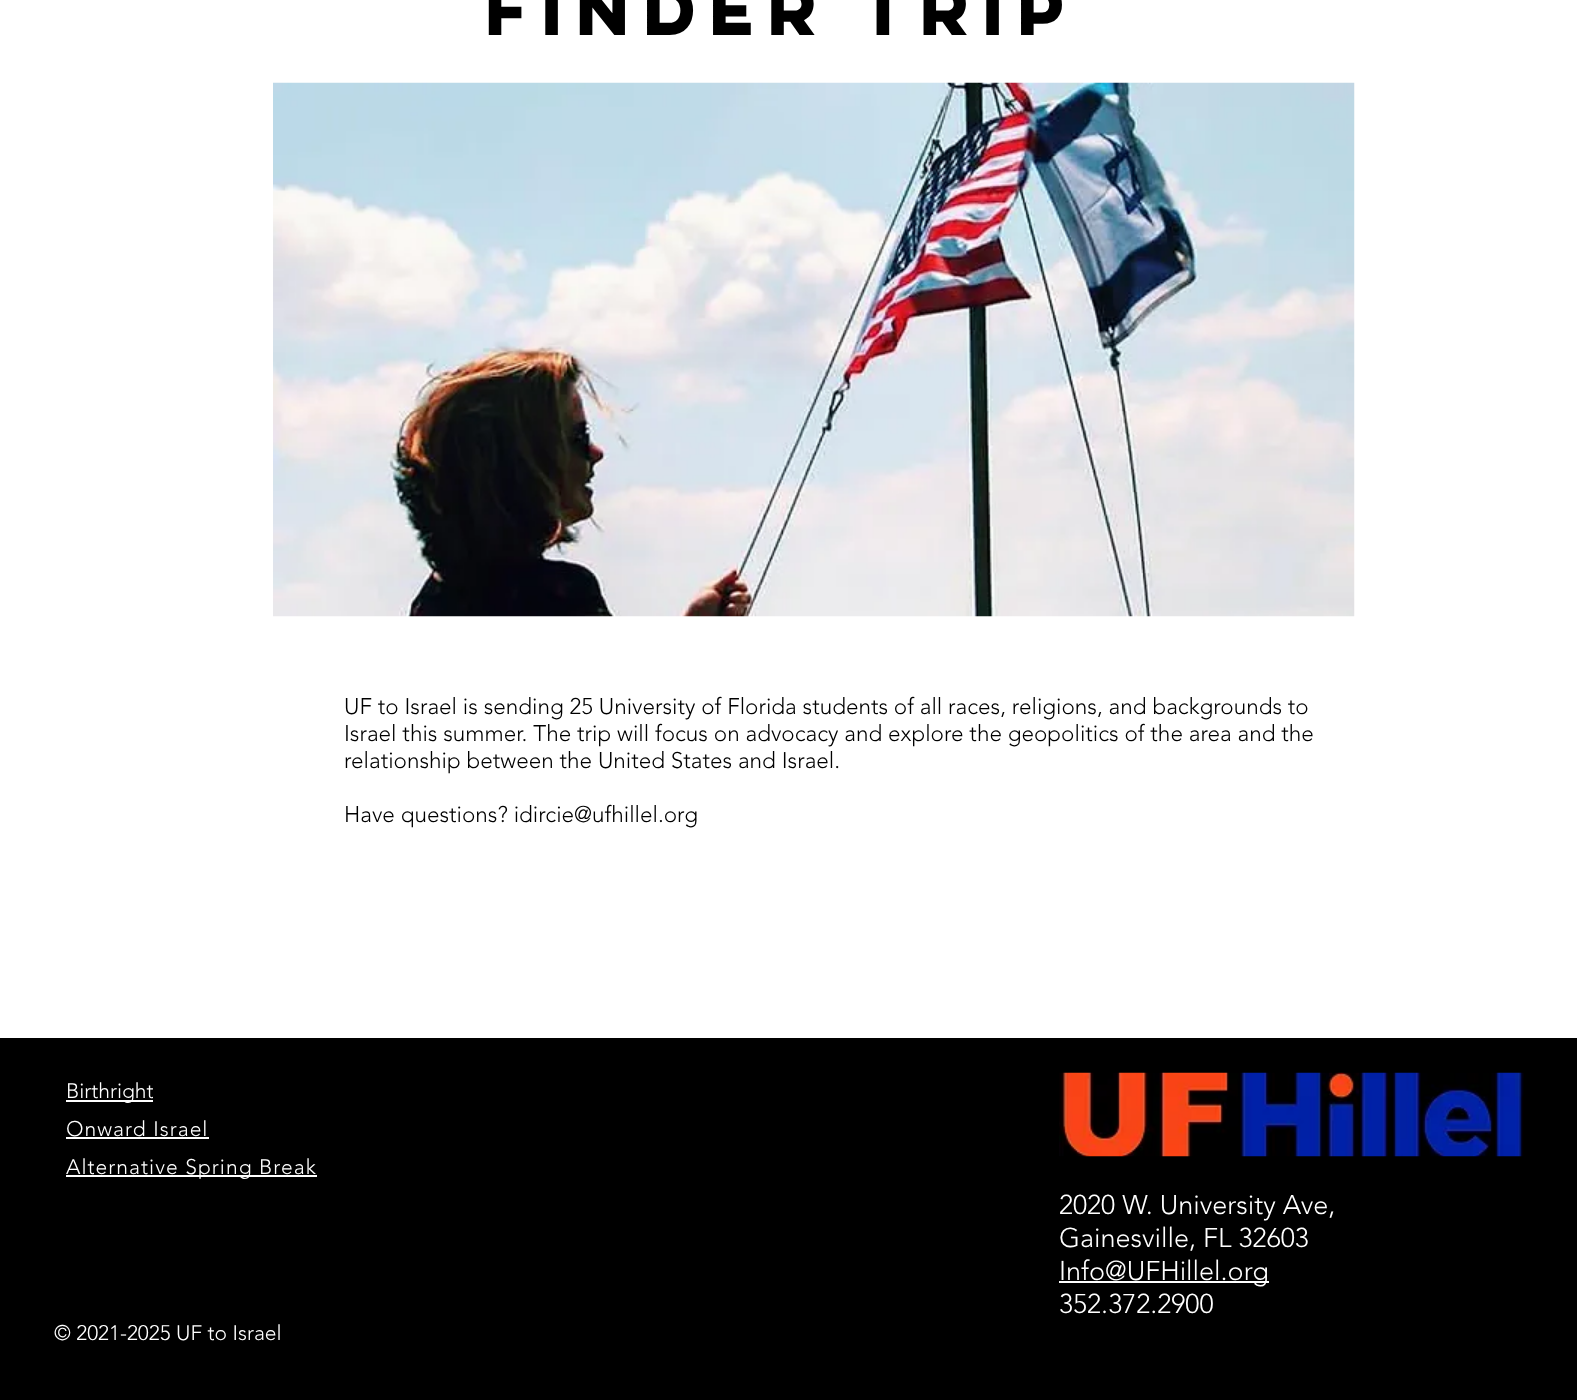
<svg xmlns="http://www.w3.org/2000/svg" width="1577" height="1400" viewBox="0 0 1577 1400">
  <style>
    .t1 { font: bold 63px 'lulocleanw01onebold'; fill: #000; }
    .t2 { font: 300 22.5px 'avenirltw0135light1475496'; fill: #000; }
    .t3 { font: 300 21px 'avenirltw0135light1475496'; fill: #fff; }
    .t4 { font: 300 21px 'avenirltw0135light1475496'; letter-spacing: 1.05px; fill: #fff; }
    .t5 { font: 300 27px 'avenirltw0135light1475496'; fill: #fff; }
  </style>
  <rect width="100%" height="100%" fill="#fff"/>
  <text x="485" y="35" class="t1">Finder Trip</text>
  <image x="273" y="82" width="1082" height="535" href="images/1.png"/>
  <text x="344" y="714" class="t2">UF to Israel is sending 25 University of Florida students of all races, religions, and backgrounds to</text>
  <text x="344" y="741" class="t2">Israel this summer. The trip will focus on advocacy and explore the geopolitics of the area and the</text>
  <text x="344" y="768" class="t2">relationship between the United States and Israel.</text>
  <text x="344" y="822" class="t2">Have questions? idircie@ufhillel.org</text>
  <rect x="0" y="1038" width="1577" height="362" fill="#000"/>
  <rect x="66" y="1100" width="87" height="2" fill="#fff"/>
  <text x="66" y="1098" class="t3">Birthright</text>
  <text x="66" y="1136" class="t4">Onward Israel</text>
  <rect x="66" y="1137" width="143" height="2" fill="#fff"/>
  <rect x="66" y="1175" width="251" height="2" fill="#fff"/>
  <text x="66" y="1174" class="t4">Alternative Spring Break</text>
  <image x="1059" y="1072" width="465" height="85" href="images/2.png"/>
  <text x="1059" y="1214" class="t5">2020 W. University Ave,</text>
  <text x="1059" y="1247" class="t5">Gainesville, FL 32603</text>
  <rect x="1059" y="1281" width="210" height="2" fill="#fff"/>
  <text x="1059" y="1280" class="t5">Info@UFHillel.org</text>
  <text x="1059" y="1313" class="t5">352.372.2900</text>
  <text x="54" y="1340" class="t3">© 2021-2025 UF to Israel</text>
</svg>
